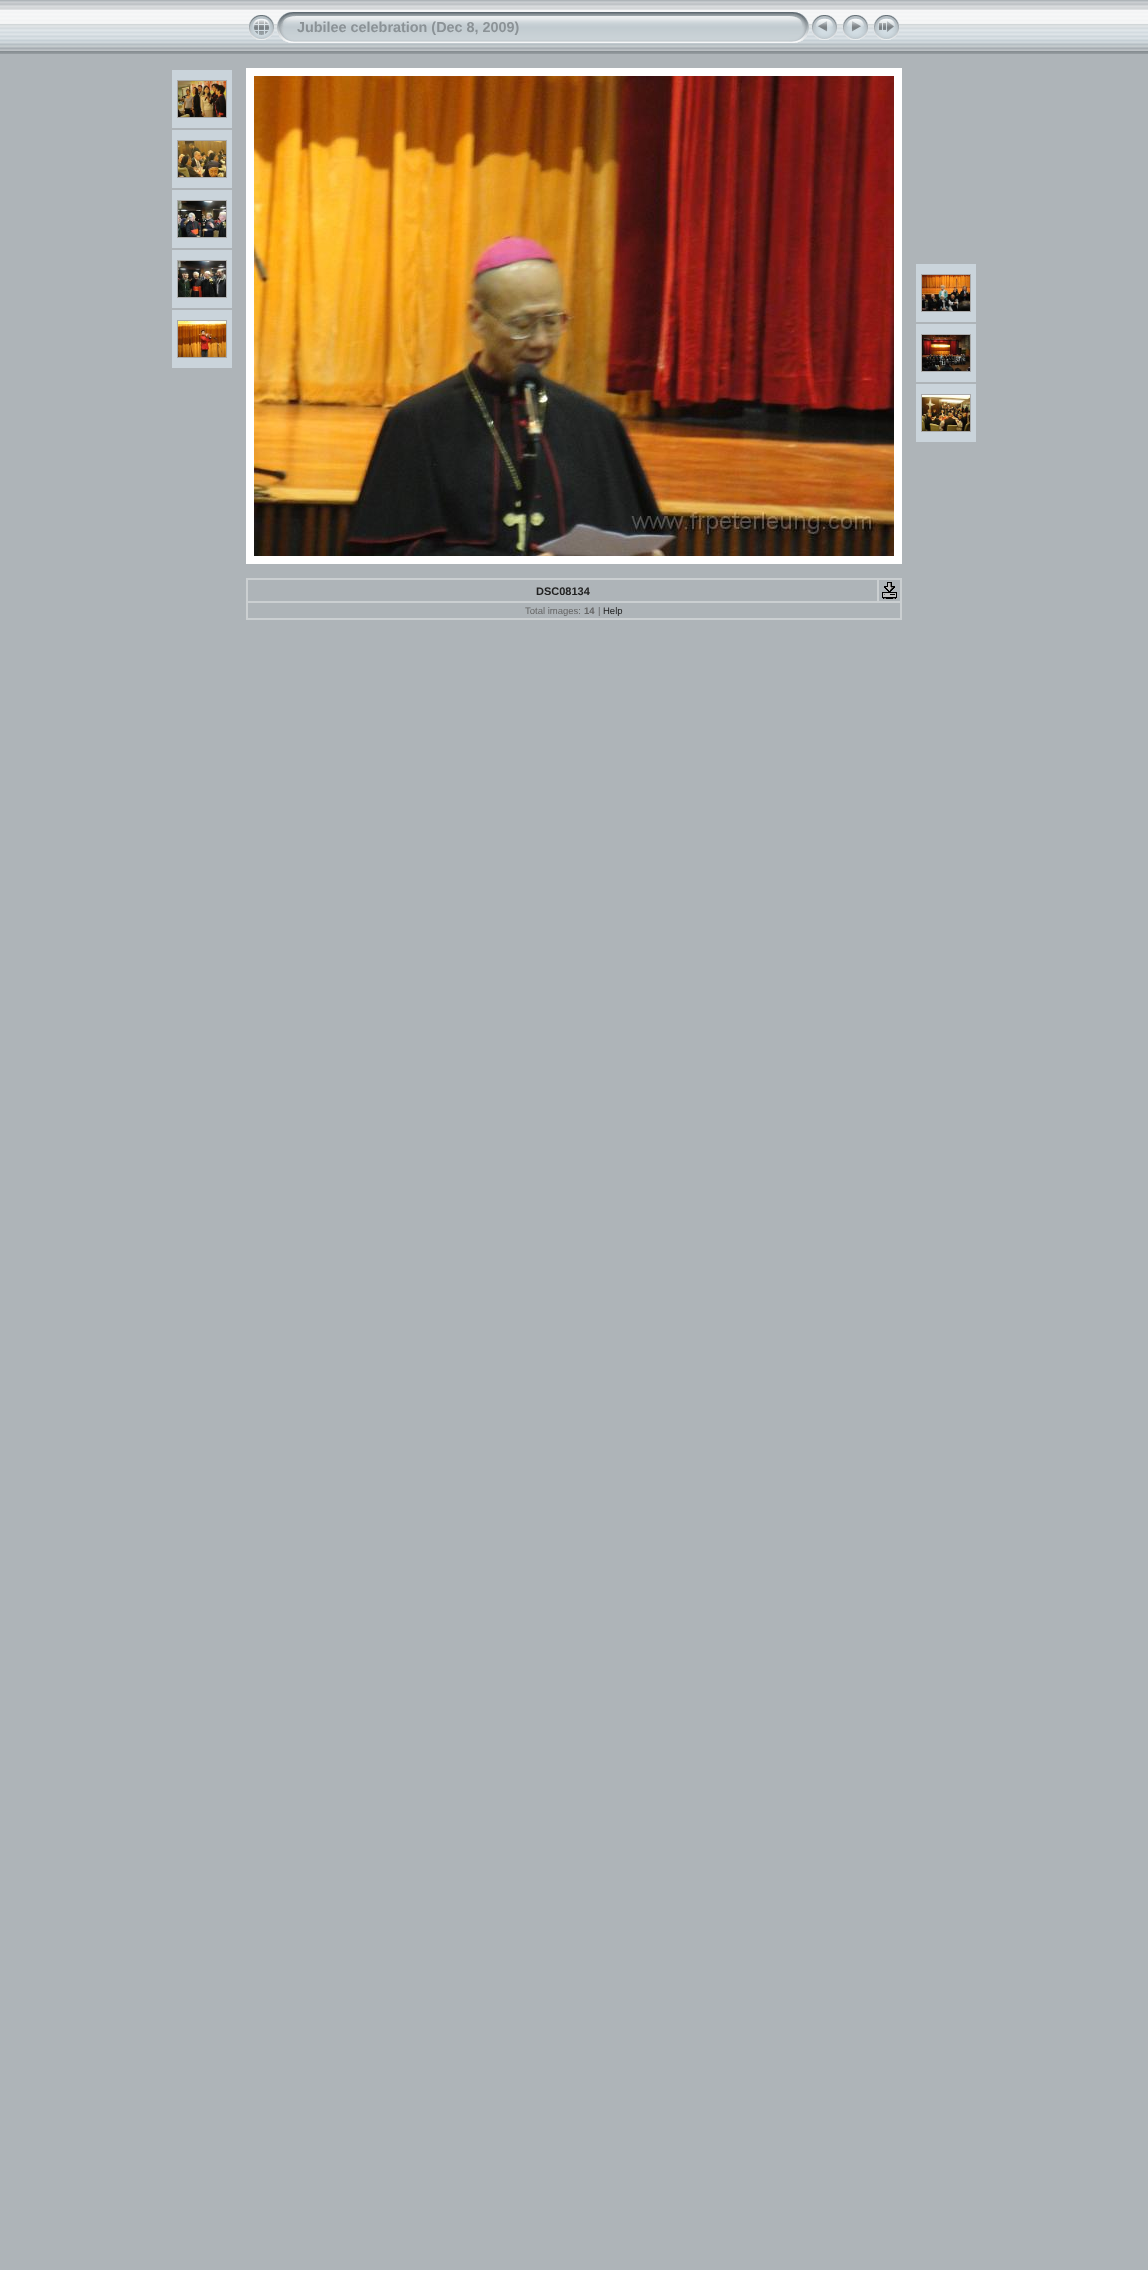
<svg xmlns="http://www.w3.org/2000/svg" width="1148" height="2270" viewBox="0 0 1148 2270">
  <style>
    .t1 { font: bold 14.4px Liberation Sans; fill: #8b9296; }
    .t2 { font: bold 11px Liberation Sans; fill: #222; }
    .t3 { font: 9.5px Liberation Sans; fill: #666; }
    .t4 { font: bold 9.5px Liberation Sans; fill: #666; }
    .t5 { font: 9.5px Liberation Sans; fill: #222; }
  </style>
  <rect width="100%" height="100%" fill="#aeb4b8"/>
  <image x="0" y="1" width="1148" height="53" href="images/1.png"/>
  <image x="248" y="15" width="26" height="25" href="images/2.png"/>
  <image x="277" y="12" width="20" height="31" href="images/3.png"/>
  <image x="297" y="12" width="492" height="31" href="images/4.png"/>
  <text x="297" y="32" class="t1">Jubilee celebration (Dec 8, 2009)</text>
  <image x="789" y="12" width="20" height="31" href="images/5.png"/>
  <image x="811" y="15" width="26" height="25" href="images/6.png"/>
  <image x="842" y="15" width="26" height="25" href="images/7.png"/>
  <image x="873" y="15" width="26" height="25" href="images/8.png"/>
  <rect x="172" y="70" width="60" height="58" fill="#cad4db"/>
  <rect x="177.5" y="80.5" width="49" height="37" fill="none" stroke="#aaa"/>
  <image x="178" y="81" width="48" height="36" href="images/9.png"/>
  <rect x="172" y="130" width="60" height="58" fill="#cad4db"/>
  <rect x="177.5" y="140.5" width="49" height="37" fill="none" stroke="#aaa"/>
  <image x="178" y="141" width="48" height="36" href="images/10.png"/>
  <rect x="172" y="190" width="60" height="58" fill="#cad4db"/>
  <rect x="177.5" y="200.5" width="49" height="37" fill="none" stroke="#aaa"/>
  <image x="178" y="201" width="48" height="36" href="images/11.png"/>
  <rect x="172" y="250" width="60" height="58" fill="#cad4db"/>
  <rect x="177.5" y="260.5" width="49" height="37" fill="none" stroke="#aaa"/>
  <image x="178" y="261" width="48" height="36" href="images/12.png"/>
  <rect x="172" y="310" width="60" height="58" fill="#cad4db"/>
  <rect x="177.5" y="320.5" width="49" height="37" fill="none" stroke="#aaa"/>
  <image x="178" y="321" width="48" height="36" href="images/13.png"/>
  <rect x="250" y="72" width="648" height="488" fill="none" stroke="#fff" stroke-width="8"/>
  <image x="254" y="76" width="640" height="480" href="images/14.png"/>
  <rect x="916" y="264" width="60" height="58" fill="#cad4db"/>
  <rect x="921.5" y="274.5" width="49" height="37" fill="none" stroke="#aaa"/>
  <image x="922" y="275" width="48" height="36" href="images/15.png"/>
  <rect x="916" y="324" width="60" height="58" fill="#cad4db"/>
  <rect x="921.5" y="334.5" width="49" height="37" fill="none" stroke="#aaa"/>
  <image x="922" y="335" width="48" height="36" href="images/16.png"/>
  <rect x="916" y="384" width="60" height="58" fill="#cad4db"/>
  <rect x="921.5" y="394.5" width="49" height="37" fill="none" stroke="#aaa"/>
  <image x="922" y="395" width="48" height="36" href="images/17.png"/>
  <rect x="246" y="578" width="656" height="2" fill="#cbcfd1"/>
  <rect x="900" y="578" width="2" height="42" fill="#cbcfd1"/>
  <rect x="246" y="618" width="656" height="2" fill="#cbcfd1"/>
  <rect x="246" y="578" width="2" height="42" fill="#cbcfd1"/>
  <text x="536" y="595" class="t2">DSC08134</text>
  <rect x="246" y="601" width="656" height="2" fill="#cbcfd1"/>
  <rect x="877" y="578" width="2" height="25" fill="#cbcfd1"/>
  <image x="882" y="582" width="15" height="17" href="images/18.png"/>
  <text x="525" y="614" class="t3">Total images:</text>
  <text x="584" y="614" class="t4">14</text>
  <text x="598" y="614" class="t3">|</text>
  <text x="603" y="614" class="t5">Help</text>
</svg>
